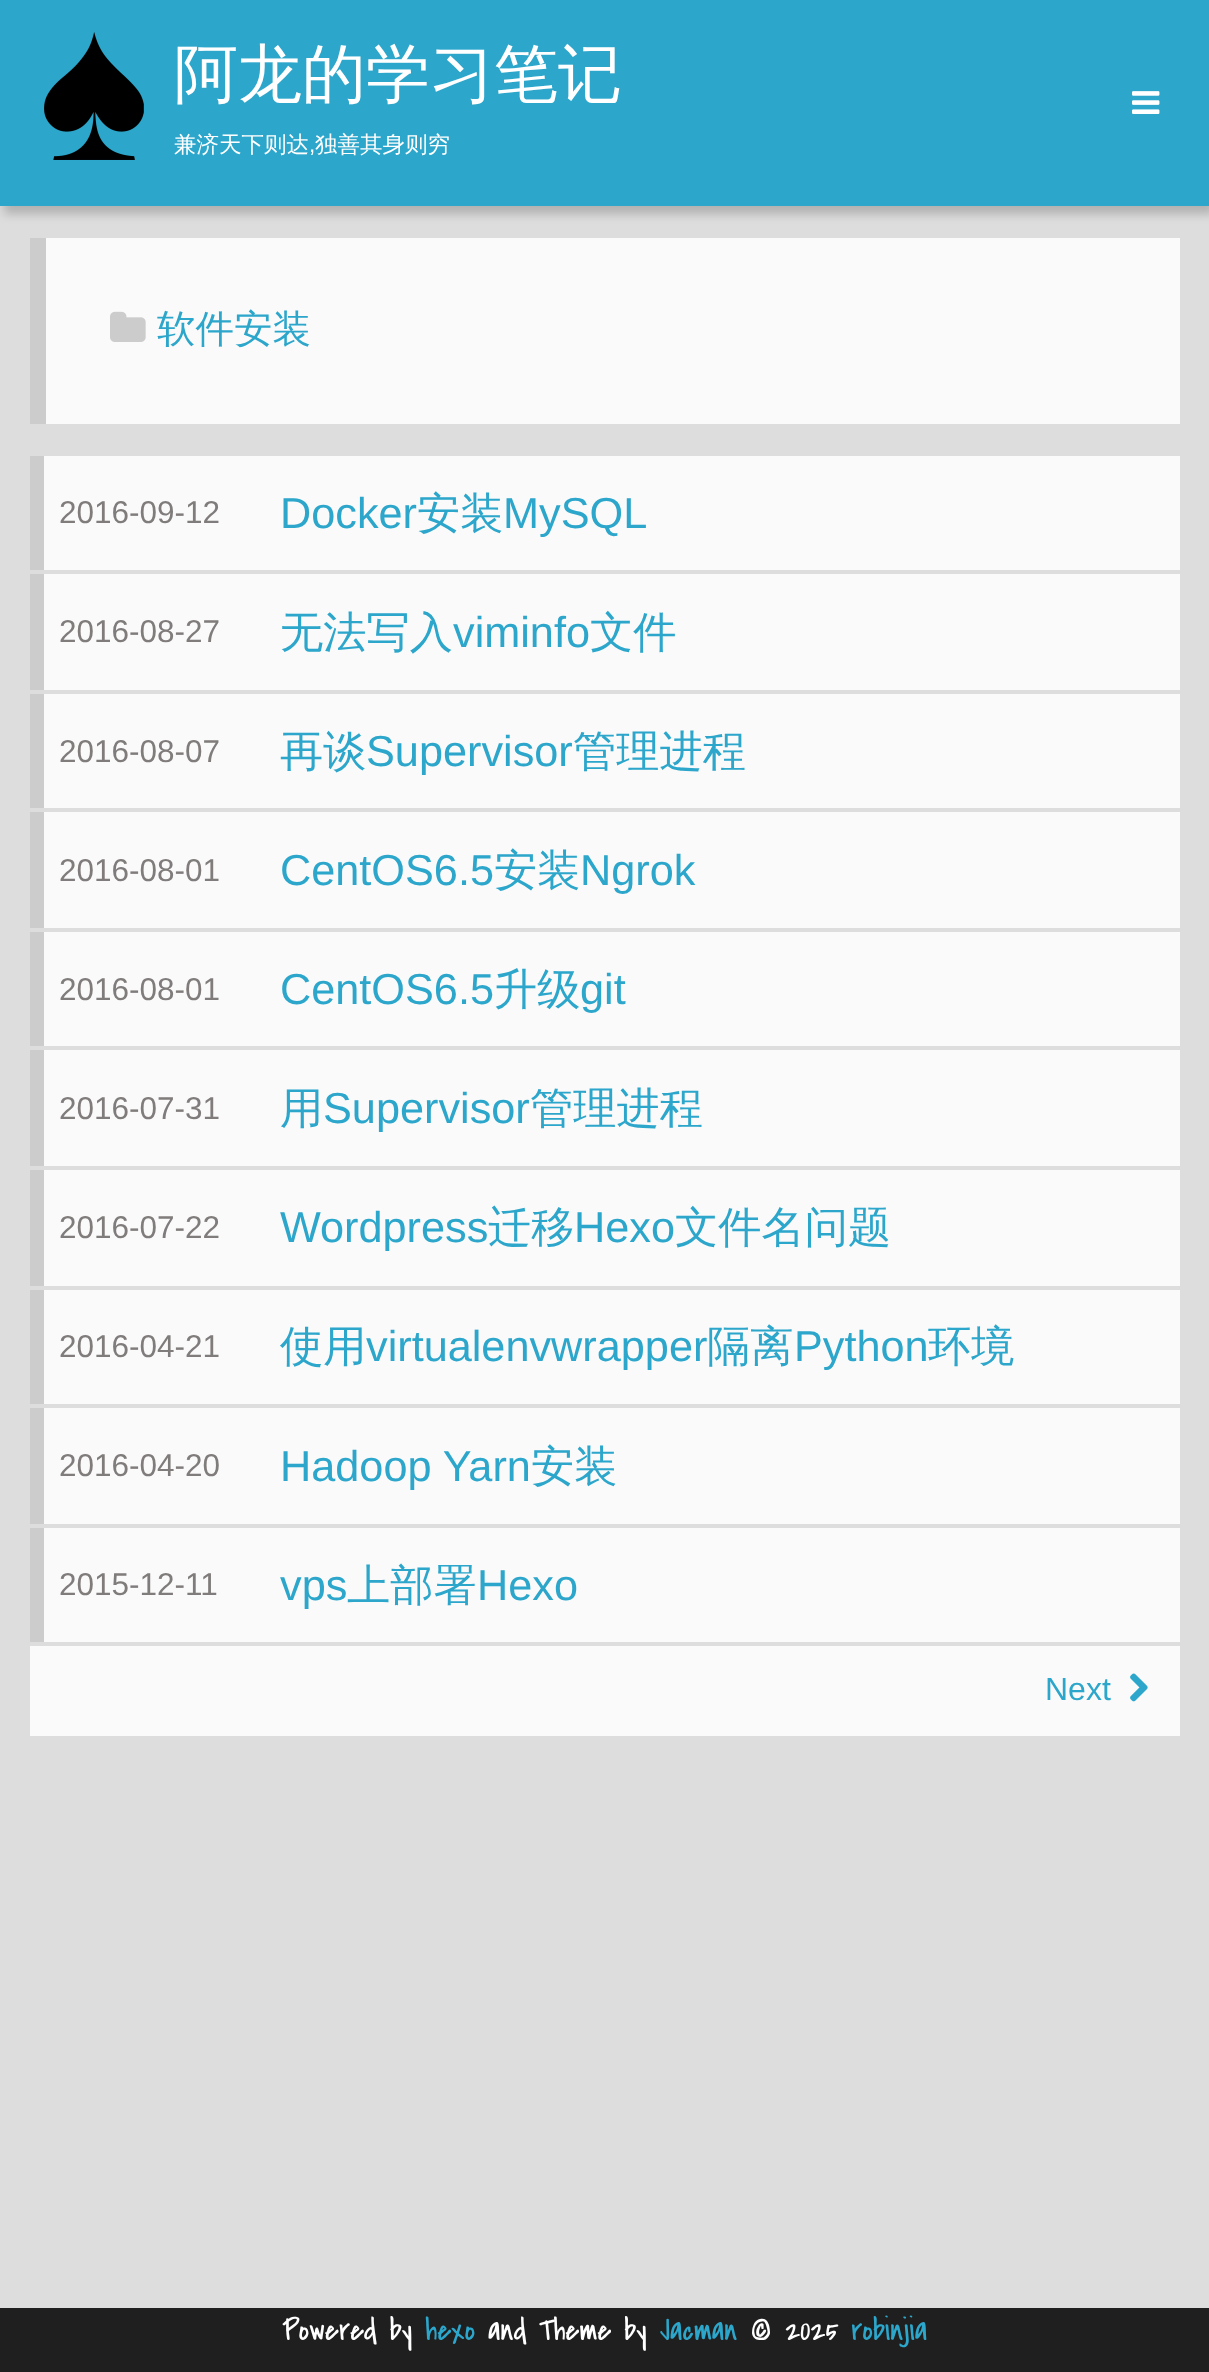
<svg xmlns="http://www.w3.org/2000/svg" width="1209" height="2372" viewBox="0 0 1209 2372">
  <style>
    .t1 { font: 500 64px WenQuanYi Zen Hei; fill: #fff; }
    .t2 { font: 500 22.5px WenQuanYi Zen Hei; fill: #fff; }
    .t3 { font: 22.5px Liberation Sans; fill: #fff; }
    .t4 { font: 500 38.5px WenQuanYi Zen Hei; fill: #2ca6cb; }
    .t5 { font: 31.5px Liberation Sans; fill: #817c7c; }
    .t6 { font: 43.25px Liberation Sans; fill: #2ca6cb; }
    .t7 { font: 500 43.25px WenQuanYi Zen Hei; fill: #2ca6cb; }
    .t8 { font: 32px Liberation Sans; fill: #2ca6cb; }
    .t9 { font: 32px Covered By Your Grace; fill: #fff; }
    .t10 { font: 32px Covered By Your Grace; fill: #2ca6cb; }
  </style>
  <rect width="100%" height="100%" fill="#ddd"/>
  <rect x="4" y="8" width="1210" height="206" fill="#03030333" filter="blur(5px)"/>
  <rect x="0" y="0" width="1209" height="206" fill="#2ca6cb"/>
  <image x="44" y="32" width="100" height="128" href="images/1.png"/>
  <text x="174" y="96" class="t1">阿龙的学习笔记</text>
  <text x="174" y="152" class="t2">兼济天下则达</text>
  <text x="309" y="152" class="t3">,</text>
  <text x="315" y="152" class="t2">独善其身则穷</text>
  <image x="1132" y="91" width="28" height="23" href="images/2.png"/>
  <rect x="46" y="238" width="1134" height="186" fill="#fafafa"/>
  <rect x="30" y="238" width="16" height="186" fill="#ccc"/>
  <image x="110" y="311" width="36" height="31" href="images/3.png"/>
  <text x="157" y="342" class="t4">软件安装</text>
  <rect x="44" y="456" width="1136" height="114" fill="#fafafa"/>
  <rect x="30" y="456" width="14" height="114" fill="#ccc"/>
  <text x="59" y="523" class="t5">2016-09-12</text>
  <text x="280" y="528" class="t6">Docker</text>
  <text x="417" y="528" class="t7">安装</text>
  <text x="503" y="528" class="t6">MySQL</text>
  <rect x="44" y="574" width="1136" height="116" fill="#fafafa"/>
  <rect x="30" y="574" width="14" height="116" fill="#ccc"/>
  <text x="59" y="642" class="t5">2016-08-27</text>
  <text x="280" y="647" class="t7">无法写入</text>
  <text x="453" y="647" class="t6">viminfo</text>
  <text x="590" y="647" class="t7">文件</text>
  <rect x="44" y="694" width="1136" height="114" fill="#fafafa"/>
  <rect x="30" y="694" width="14" height="114" fill="#ccc"/>
  <text x="59" y="762" class="t5">2016-08-07</text>
  <text x="280" y="766" class="t7">再谈</text>
  <text x="366" y="766" class="t6">Supervisor</text>
  <text x="573" y="766" class="t7">管理进程</text>
  <rect x="44" y="812" width="1136" height="116" fill="#fafafa"/>
  <rect x="30" y="812" width="14" height="116" fill="#ccc"/>
  <text x="59" y="881" class="t5">2016-08-01</text>
  <text x="280" y="885" class="t6">CentOS6.5</text>
  <text x="494" y="885" class="t7">安装</text>
  <text x="580" y="885" class="t6">Ngrok</text>
  <rect x="44" y="932" width="1136" height="114" fill="#fafafa"/>
  <rect x="30" y="932" width="14" height="114" fill="#ccc"/>
  <text x="59" y="1000" class="t5">2016-08-01</text>
  <text x="280" y="1004" class="t6">CentOS6.5</text>
  <text x="494" y="1004" class="t7">升级</text>
  <text x="580" y="1004" class="t6">git</text>
  <rect x="44" y="1050" width="1136" height="116" fill="#fafafa"/>
  <rect x="30" y="1050" width="14" height="116" fill="#ccc"/>
  <text x="59" y="1119" class="t5">2016-07-31</text>
  <text x="280" y="1123" class="t7">用</text>
  <text x="323" y="1123" class="t6">Supervisor</text>
  <text x="530" y="1123" class="t7">管理进程</text>
  <rect x="44" y="1170" width="1136" height="116" fill="#fafafa"/>
  <rect x="30" y="1170" width="14" height="116" fill="#ccc"/>
  <text x="59" y="1238" class="t5">2016-07-22</text>
  <text x="280" y="1242" class="t6">Wordpress</text>
  <text x="488" y="1242" class="t7">迁移</text>
  <text x="574" y="1242" class="t6">Hexo</text>
  <text x="675" y="1242" class="t7">文件名问题</text>
  <rect x="44" y="1290" width="1136" height="114" fill="#fafafa"/>
  <rect x="30" y="1290" width="14" height="114" fill="#ccc"/>
  <text x="59" y="1357" class="t5">2016-04-21</text>
  <text x="280" y="1361" class="t7">使用</text>
  <text x="366" y="1361" class="t6">virtualenvwrapper</text>
  <text x="707" y="1361" class="t7">隔离</text>
  <text x="794" y="1361" class="t6">Python</text>
  <text x="928" y="1361" class="t7">环境</text>
  <rect x="44" y="1408" width="1136" height="116" fill="#fafafa"/>
  <rect x="30" y="1408" width="14" height="116" fill="#ccc"/>
  <text x="59" y="1476" class="t5">2016-04-20</text>
  <text x="280" y="1481" class="t6">Hadoop Yarn</text>
  <text x="531" y="1481" class="t7">安装</text>
  <rect x="44" y="1528" width="1136" height="114" fill="#fafafa"/>
  <rect x="30" y="1528" width="14" height="114" fill="#ccc"/>
  <text x="59" y="1595" class="t5">2015-12-11</text>
  <text x="280" y="1600" class="t6">vps</text>
  <text x="347" y="1600" class="t7">上部署</text>
  <text x="477" y="1600" class="t6">Hexo</text>
  <rect x="30" y="1646" width="1150" height="90" fill="#fafafa"/>
  <text x="1045" y="1700" class="t8">Next</text>
  <image x="1130" y="1673" width="18" height="29" href="images/4.png"/>
  <rect x="0" y="2308" width="1209" height="64" fill="#1f1f1f"/>
  <text x="282" y="2340" class="t9">Powered by</text>
  <text x="425" y="2340" class="t10">hexo</text>
  <text x="488" y="2340" class="t9">and Theme by</text>
  <text x="660" y="2340" class="t10">Jacman</text>
  <text x="750" y="2340" class="t9">© 2025</text>
  <text x="851" y="2340" class="t10">robinjia</text>
</svg>
